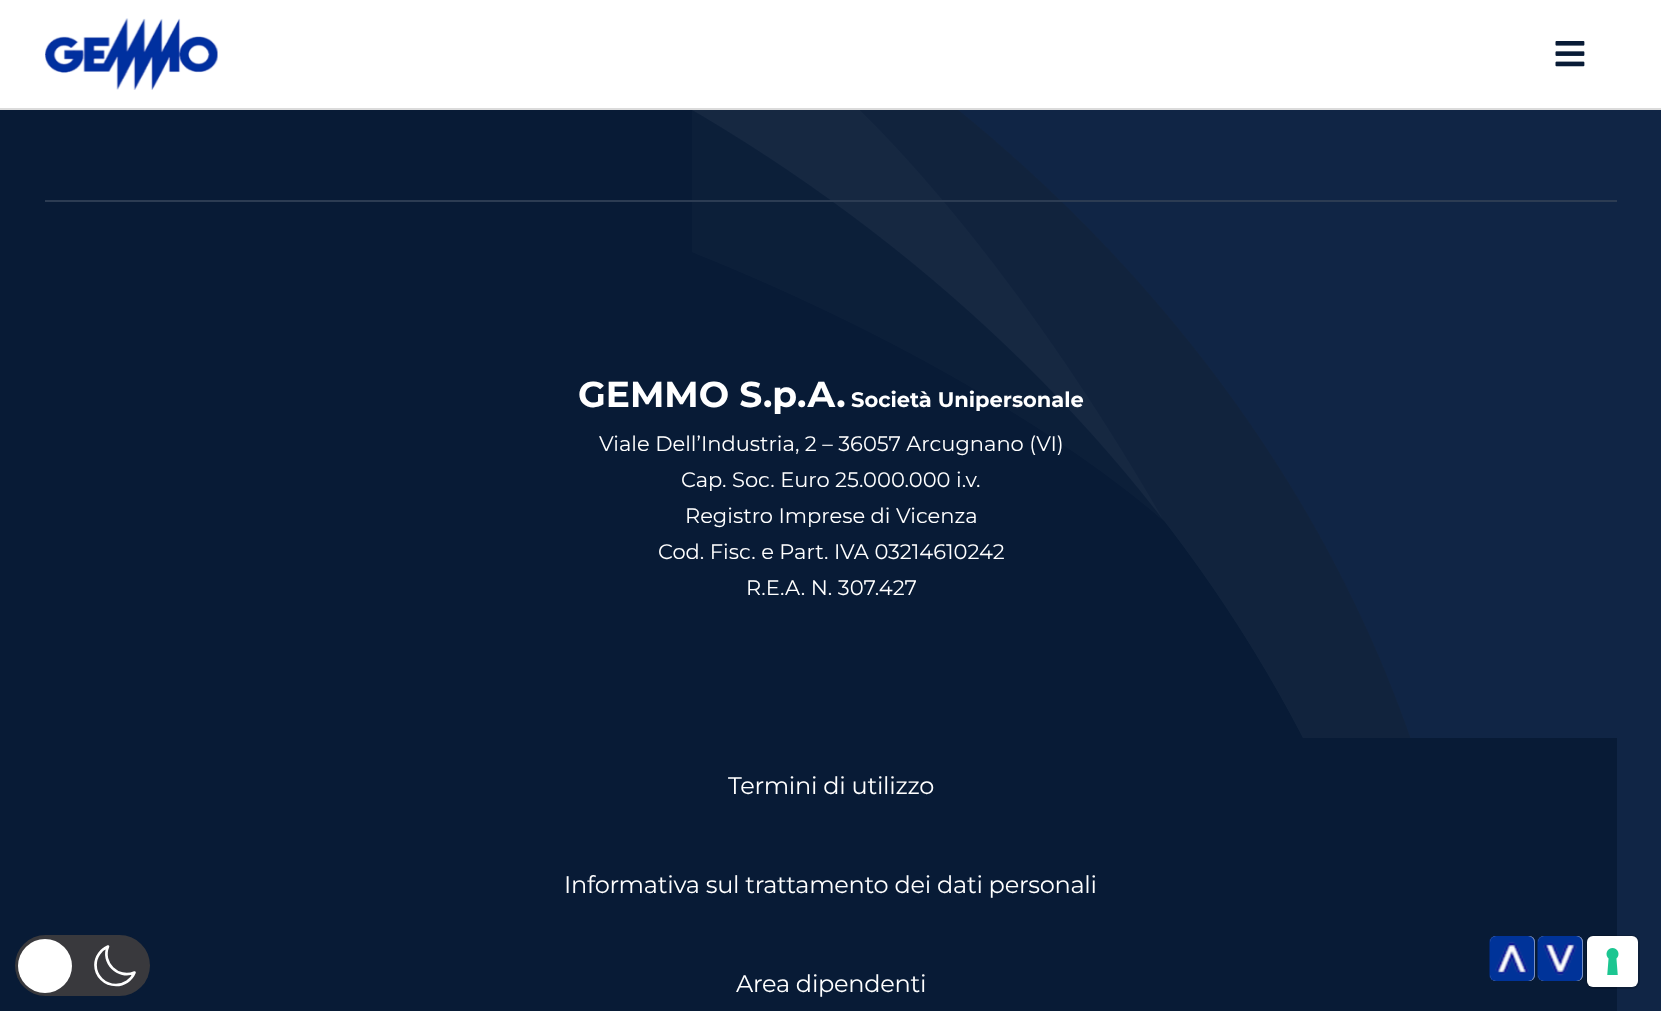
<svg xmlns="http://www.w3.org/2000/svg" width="1661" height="1011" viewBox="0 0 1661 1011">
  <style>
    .t1 { font: bold 36px Montserrat; fill: #fff; }
    .t2 { font: bold 21px Montserrat; fill: #fff; }
    .t3 { font: 21px Montserrat; fill: #fff; }
    .t4 { font: 24px Montserrat; letter-spacing: -0.25px; fill: #fff; }
  </style>
  <rect width="100%" height="100%" fill="#081b36"/>
  <rect x="15" y="935" width="135" height="61" rx="30.5" fill="#39393d"/>
  <circle cx="45" cy="966" r="27" fill="#fff"/>
  <path d="M134.5 972.5C118 979.5 101 962.5 108 946.5C101 949.5 95.5 956.5 95.5 965C95.5 976 104.5 985 116 985C124 985 131.5 980 134.5 972.5Z" fill="none" stroke="#fff" stroke-width="2.7" stroke-linecap="round" stroke-linejoin="round"/>
  <rect x="0" y="0" width="1661" height="108" fill="#fff"/>
  <rect x="0" y="108" width="1661" height="2" fill="#dbdbdb"/>
  <image x="45" y="18" width="173" height="72" href="images/1.png"/>
  <image x="1555" y="41" width="30" height="26" href="images/2.png"/>
  <image x="692" y="110" width="969" height="901" href="images/3.png"/>
  <rect x="45" y="200" width="1572" height="2" fill="#2c3c53"/>
  <text x="578" y="407" class="t1">GEMMO S.p.A.</text>
  <text x="851" y="407" class="t2">Società Unipersonale</text>
  <text x="599" y="451" class="t3">Viale Dell’Industria, 2 – 36057 Arcugnano (VI)</text>
  <text x="681" y="487" class="t3">Cap. Soc. Euro 25.000.000 i.v.</text>
  <text x="685" y="523" class="t3">Registro Imprese di Vicenza</text>
  <text x="658" y="559" class="t3">Cod. Fisc. e Part. IVA 03214610242</text>
  <text x="746" y="595" class="t3">R.E.A. N. 307.427</text>
  <rect x="1303" y="738" width="314" height="273" fill="#081b36"/>
  <text x="728" y="794" class="t4">Termini di utilizzo</text>
  <text x="564" y="893" class="t4">Informativa sul trattamento dei dati personali</text>
  <text x="736" y="992" class="t4">Area dipendenti</text>
  <rect x="1490" y="936" width="45" height="45" rx="6" fill="#efefef"/>
  <image x="1489" y="936" width="46" height="45" href="images/4.png"/>
  <rect x="1538" y="936" width="45" height="45" rx="6" fill="#efefef"/>
  <image x="1537" y="936" width="46" height="45" href="images/5.png"/>
  <rect x="1587" y="936" width="52" height="52" rx="7" fill="none" stroke="#00000026" stroke-width="2"/>
  <rect x="1587" y="936" width="51" height="51" rx="6" fill="#fff"/>
  <image x="1606" y="948" width="13" height="27" href="images/6.png"/>
</svg>
